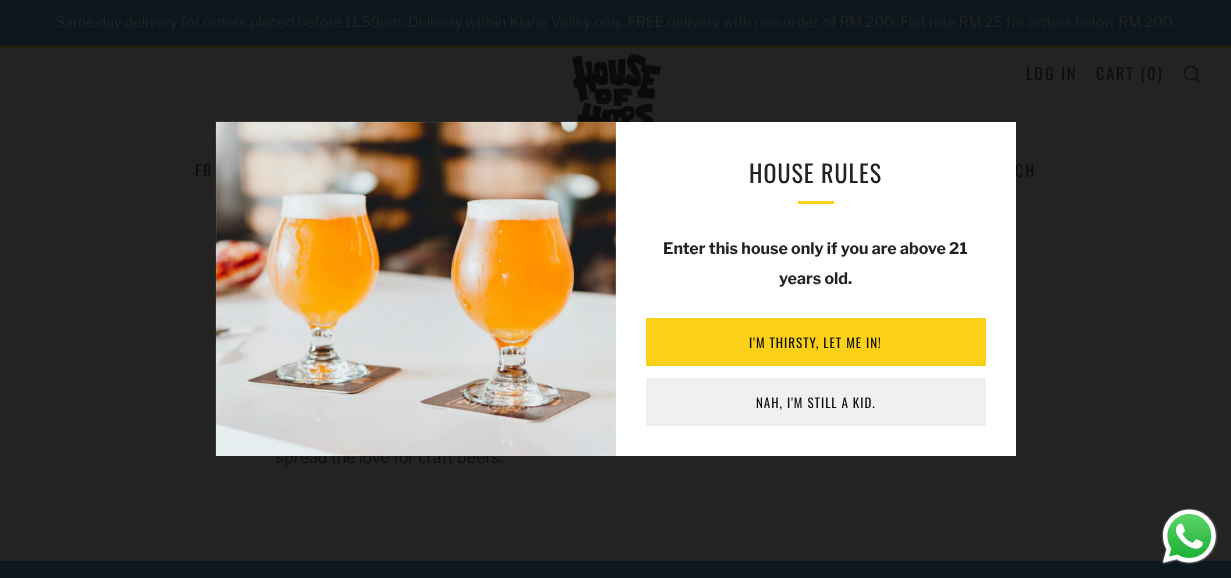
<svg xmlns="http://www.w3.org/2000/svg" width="1231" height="578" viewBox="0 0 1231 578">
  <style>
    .t1 { font: 14.4px Libre Franklin; fill: #232323; }
    .t2 { font: 16px Oswald; letter-spacing: 2px; fill: #0d0d0d; }
    .t3 { font: 16px Libre Franklin; fill: #0d0d0d; }
    .t4 { font: 24px Oswald; letter-spacing: 1px; fill: #232323; }
    .t5 { font: bold 16px Libre Franklin; fill: #232323; }
    .t6 { font: 13px Oswald; letter-spacing: 1px; fill: #0d0d0d; }
  </style>
  <rect width="100%" height="100%" fill="#232323"/>
  <rect x="0" y="0" width="1231" height="45" fill="#0c161d"/>
  <text x="56" y="27" class="t1">Same day delivery for orders placed before 11.59pm. Delivery within Klang Valley only. FREE delivery with min order of RM 200. Flat rate RM 25 for orders below RM 200.</text>
  <rect x="0" y="45" width="1231" height="3" fill="#231f0c"/>
  <image x="572" y="51" width="89" height="71" href="images/1.png"/>
  <text x="1026" y="80" class="t2">LOG IN</text>
  <text x="1096" y="80" class="t2">CART (0)</text>
  <image x="1183" y="65" width="17" height="17" href="images/2.png"/>
  <text x="195" y="177" class="t2">FR</text>
  <text x="1015" y="177" class="t2">CH</text>
  <text x="276" y="463" class="t3">spread the love for craft beers.</text>
  <rect x="0" y="561" width="1231" height="17" fill="#0c161d"/>
  <rect x="216" y="122" width="800" height="334" fill="#fff"/>
  <image x="215" y="121" width="401" height="335" href="images/3.png"/>
  <text x="749" y="183" class="t4">HOUSE RULES</text>
  <rect x="798" y="201" width="36" height="3" fill="#fad018"/>
  <text x="663" y="254" class="t5">Enter this house only if you are above 21</text>
  <text x="779" y="284" class="t5">years old.</text>
  <rect x="646" y="318" width="340" height="48" fill="#fad018"/>
  <text x="749" y="348" class="t6">I'M THIRSTY, LET ME IN!</text>
  <rect x="646" y="378" width="340" height="48" fill="#f0f0f0"/>
  <text x="756" y="408" class="t6">NAH, I'M STILL A KID.</text>
  <image x="1161" y="508" width="57" height="57" href="images/4.png"/>
</svg>
